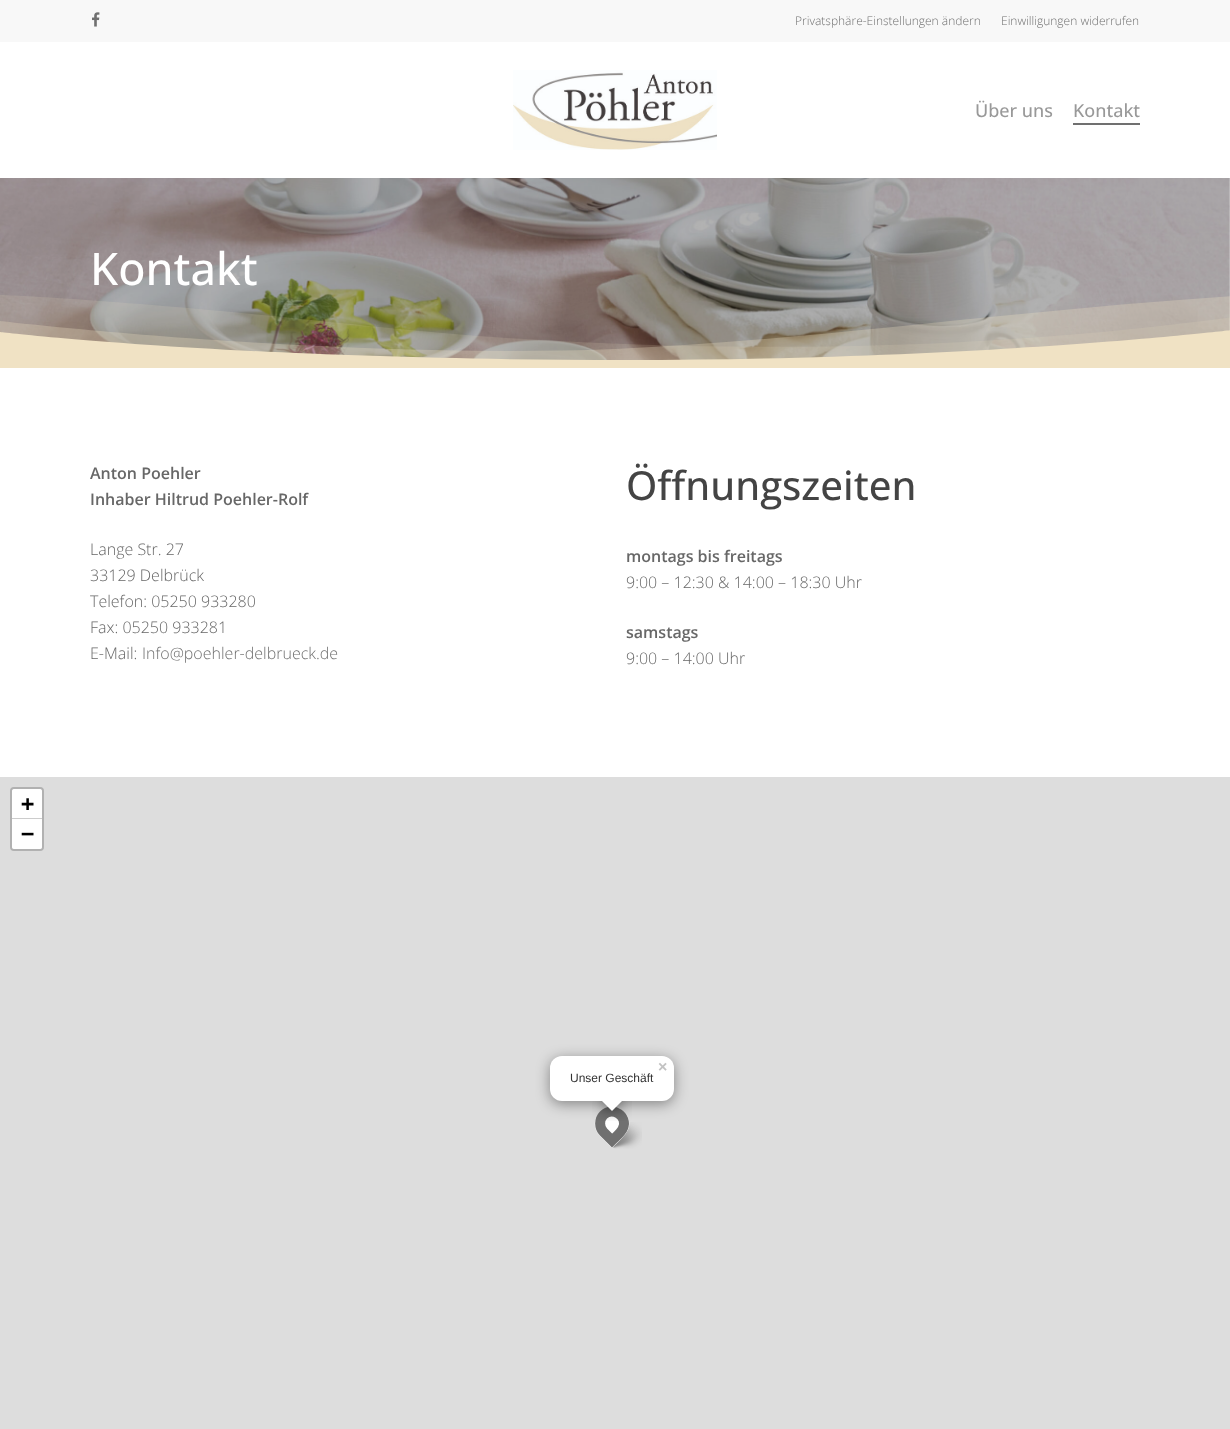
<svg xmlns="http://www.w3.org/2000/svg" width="1230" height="1429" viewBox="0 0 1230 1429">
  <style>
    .t1 { font: 300 12px Open Sans; fill: #707070; }
    .t2 { font: 500 18px Open Sans; fill: #999; }
    .t3 { font: 500 45px Open Sans; fill: #fff; }
    .t4 { font: 600 16px Open Sans; fill: #676767; }
    .t5 { font: 300 16px Open Sans; fill: #676767; }
    .t6 { font: 300 16px Open Sans; fill: #707070; }
    .t7 { font: 500 40px Open Sans; fill: #444; }
    .t8 { font: bold 22px DejaVu Sans Mono; fill: #000; }
    .t9 { font: bold 16px Liberation Sans; fill: #c3c3c3; }
    .t10 { font: 12px Liberation Sans; fill: #333; }
  </style>
  <defs>
    <clipPath id="clip1"><rect x="0" y="283" width="1230" height="85"/></clipPath>
    <clipPath id="clip2"><rect x="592" y="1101" width="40" height="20"/></clipPath>
    <clipPath id="clip3"><rect x="592" y="1101" width="40" height="20"/></clipPath>
  </defs>
  <rect width="100%" height="100%" fill="#fff"/>
  <rect x="0" y="0" width="1230" height="42" fill="#f8f8f8"/>
  <image x="92" y="12" width="8" height="15" href="images/1.png"/>
  <text x="795" y="25" class="t1">Privatsphäre-Einstellungen ändern</text>
  <text x="1001" y="25" class="t1">Einwilligungen widerrufen</text>
  <image x="513" y="70" width="204" height="80" href="images/2.png"/>
  <text x="975" y="117" class="t2">Über uns</text>
  <text x="1073" y="117" class="t2">Kontakt</text>
  <rect x="1073" y="123" width="67" height="2" fill="#707070"/>
  <image x="0" y="178" width="1230" height="182" href="images/3.png"/>
  <text x="90" y="285" class="t3">Kontakt</text>
  <g clip-path="url(#clip1)">
    <path d="M0 295C0 295 109 298 369 326C689 360 1001 349 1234 317L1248 341L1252 372H0Z" fill="#f0e2c426"/>
  </g>
  <path d="M0 321C0 321 333 360 615 349C808 341 1021 309 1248 295V368H0Z" fill="#f0e2c44d"/>
  <path d="M0 332C0 332 232 360 625 360C982 360 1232 330 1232 330V368H0Z" fill="#f0e2c4"/>
  <text x="90" y="479" class="t4">Anton Poehler</text>
  <text x="90" y="505" class="t4">Inhaber Hiltrud Poehler-Rolf</text>
  <text x="90" y="555" class="t5">Lange Str. 27</text>
  <text x="90" y="581" class="t5">33129 Delbrück</text>
  <text x="90" y="607" class="t5">Telefon: 05250 933280</text>
  <text x="90" y="633" class="t5">Fax: 05250 933281</text>
  <text x="90" y="659" class="t5">E-Mail:</text>
  <text x="142" y="659" class="t6">Info@poehler-delbrueck.de</text>
  <text x="626" y="500" class="t7">Öffnungszeiten</text>
  <text x="626" y="562" class="t4">montags bis freitags</text>
  <text x="626" y="588" class="t5">9:00 – 12:30 &amp; 14:00 – 18:30 Uhr</text>
  <text x="626" y="638" class="t4">samstags</text>
  <text x="626" y="664" class="t5">9:00 – 14:00 Uhr</text>
  <rect x="0" y="777" width="1230" height="652" fill="#ddd"/>
  <rect x="11" y="788" width="32" height="62" rx="3" fill="none" stroke="#b1b1b1" stroke-width="2"/>
  <path d="M14 789H40C41 789 42 790 42 791V819H12V791C12 790 13 789 14 789Z" fill="#fff"/>
  <rect x="12" y="818" width="30" height="1" fill="#ccc"/>
  <text x="21" y="811" class="t8">+</text>
  <path d="M12 819H42V847C42 848 41 849 40 849H14C13 849 12 848 12 847Z" fill="#fff"/>
  <text x="21" y="841" class="t8">−</text>
  <image x="611" y="1122" width="31" height="27" href="images/4.png"/>
  <path d="M600 1112C613 1099 635 1113 628 1130C625 1136 617 1143 612 1148L600 1136C593 1129 593 1118 600 1112Z" fill="#fff"/>
  <path d="M603.5 1115C612.5 1106 628 1116 623 1128C621.5 1132.5 615.5 1137 612 1140.5L603.5 1132C599 1127.5 599 1119.5 603.5 1115Z" fill="none" stroke="#707070" stroke-width="10"/>
  <rect x="550" y="1059" width="124" height="45" rx="12" fill="#00000066" filter="blur(7px)"/>
  <rect x="550" y="1056" width="124" height="45" rx="12" fill="#fff"/>
  <text x="658" y="1072" class="t9">×</text>
  <g clip-path="url(#clip2)">
    <rect x="604" y="1094" width="17" height="17" fill="#00000066" filter="blur(7px)"/>
  </g>
  <g clip-path="url(#clip3)">
    <path d="M612 1087L624 1099L612 1111L600 1099Z" fill="#fff"/>
  </g>
  <text x="570" y="1082" class="t10">Unser Geschäft</text>
</svg>
